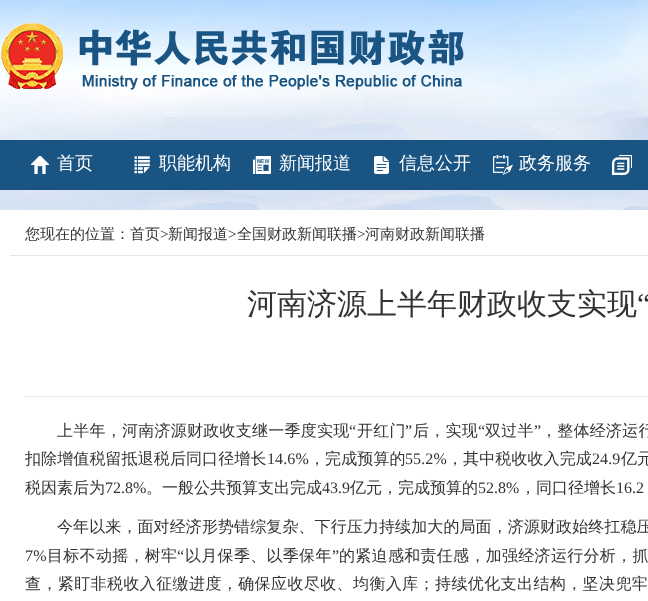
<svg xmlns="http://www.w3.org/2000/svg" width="648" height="601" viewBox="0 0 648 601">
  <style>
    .t1 { font: 500 18px WenQuanYi Zen Hei; fill: #fff; }
    .t2 { font: 500 15px WenQuanYi Zen Hei; fill: #333; }
    .t3 { font: 15px Liberation Serif; fill: #333; }
    .t4 { font: 500 30px WenQuanYi Zen Hei; fill: #333; }
    .t5 { font: 30px Liberation Serif; fill: #333; }
    .t6 { font: 500 16px WenQuanYi Zen Hei; letter-spacing: 0.25px; fill: #333; }
    .t7 { font: 16px Liberation Serif; letter-spacing: 0.25px; fill: #333; }
    .t8 { font: 500 16px WenQuanYi Zen Hei; letter-spacing: 0.1px; fill: #333; }
    .t9 { font: 16px Liberation Serif; letter-spacing: 0.1px; fill: #333; }
    .t10 { font: 500 16px WenQuanYi Zen Hei; fill: #333; }
    .t11 { font: 16px Liberation Serif; fill: #333; }
    .t12 { font: 16px Liberation Serif; letter-spacing: 0.3px; fill: #333; }
    .t13 { font: 500 16px WenQuanYi Zen Hei; letter-spacing: 0.3px; fill: #333; }
    .t14 { font: 500 16px WenQuanYi Zen Hei; letter-spacing: 0.4px; fill: #333; }
  </style>
  <rect width="100%" height="100%" fill="#fff"/>
  <image x="0" y="0" width="648" height="210" href="images/1.png"/>
  <image x="1" y="23" width="463" height="67" href="images/2.png"/>
  <rect x="0" y="140" width="648" height="50" fill="#195482"/>
  <image x="31" y="156" width="18" height="18" href="images/3.png"/>
  <text x="57" y="169" class="t1">首页</text>
  <image x="134" y="156" width="16" height="18" href="images/4.png"/>
  <text x="159" y="169" class="t1">职能机构</text>
  <image x="253" y="156" width="18" height="18" href="images/5.png"/>
  <text x="279" y="169" class="t1">新闻报道</text>
  <image x="374" y="156" width="15" height="18" href="images/6.png"/>
  <text x="399" y="169" class="t1">信息公开</text>
  <image x="493" y="155" width="20" height="20" href="images/7.png"/>
  <text x="519" y="169" class="t1">政务服务</text>
  <image x="612" y="155" width="20" height="20" href="images/8.png"/>
  <rect x="10" y="255" width="638" height="1" fill="#e5e5e5"/>
  <text x="25" y="239" class="t2">您现在的位置：首页</text>
  <text x="160" y="239" class="t3">&gt;</text>
  <text x="168" y="239" class="t2">新闻报道</text>
  <text x="228" y="239" class="t3">&gt;</text>
  <text x="237" y="239" class="t2">全国财政新闻联播</text>
  <text x="357" y="239" class="t3">&gt;</text>
  <text x="365" y="239" class="t2">河南财政新闻联播</text>
  <text x="247" y="314" class="t4">河南济源上半年财政收支实现</text>
  <text x="637" y="314" class="t5">“</text>
  <rect x="25" y="396" width="623" height="1" fill="#e5e5e5"/>
  <text x="57" y="436" class="t6">上半年，河南济源财政收支继一季度实现</text>
  <text x="349" y="436" class="t7">“</text>
  <text x="357" y="436" class="t6">开红门</text>
  <text x="405" y="436" class="t7">”</text>
  <text x="413" y="436" class="t6">后，实现</text>
  <text x="478" y="436" class="t7">“</text>
  <text x="485" y="436" class="t6">双过半</text>
  <text x="534" y="436" class="t7">”</text>
  <text x="541" y="436" class="t6">，整体经济运行</text>
  <text x="25" y="464" class="t8">扣除增值税留抵退税后同口径增长</text>
  <text x="267" y="464" class="t9">14.6%</text>
  <text x="309" y="464" class="t8">，完成预算的</text>
  <text x="405" y="464" class="t9">55.2%</text>
  <text x="447" y="464" class="t8">，其中税收收入完成</text>
  <text x="592" y="464" class="t9">24.9</text>
  <text x="621" y="464" class="t8">亿元</text>
  <text x="25" y="493" class="t10">税因素后为</text>
  <text x="105" y="493" class="t11">72.8%</text>
  <text x="146" y="493" class="t10">。一般公共预算支出完成</text>
  <text x="322" y="493" class="t11">43.9</text>
  <text x="350" y="493" class="t10">亿元，完成预算的</text>
  <text x="478" y="493" class="t11">52.8%</text>
  <text x="520" y="493" class="t10">，同口径增长</text>
  <text x="616" y="493" class="t11">16.2</text>
  <text x="57" y="532" class="t8">今年以来，面对经济形势错综复杂、下行压力持续加大的局面，济源财政始终扛稳压</text>
  <text x="25" y="561" class="t12">7%</text>
  <text x="47" y="561" class="t13">目标不动摇，树牢</text>
  <text x="177" y="561" class="t12">“</text>
  <text x="185" y="561" class="t13">以月保季、以季保年</text>
  <text x="332" y="561" class="t12">”</text>
  <text x="339" y="561" class="t13">的紧迫感和责任感，加强经济运行分析，抓</text>
  <text x="25" y="589" class="t14">查，紧盯非税收入征缴进度，确保应收尽收、均衡入库；持续优化支出结构，坚决兜牢</text>
</svg>
